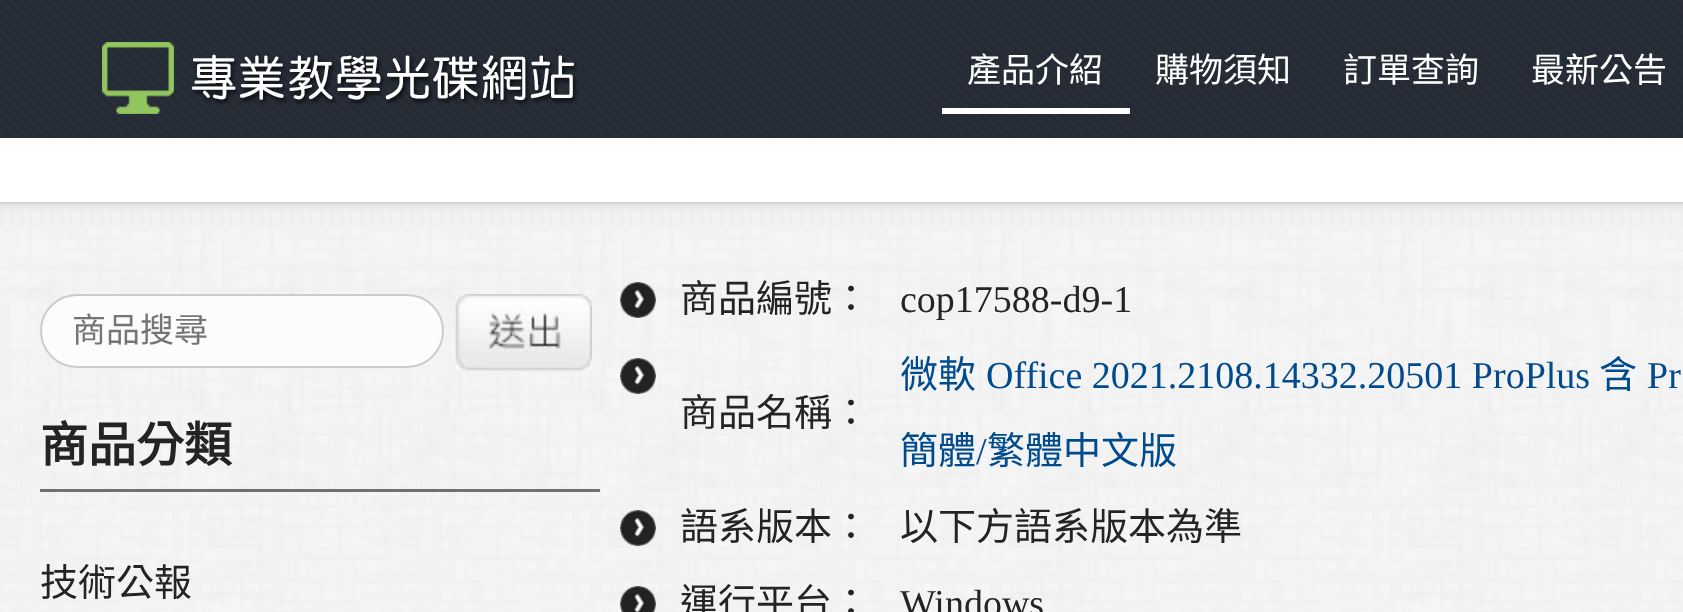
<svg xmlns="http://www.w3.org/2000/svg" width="1683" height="612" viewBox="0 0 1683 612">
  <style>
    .t1 { font: 34px Noto Sans CJK TC; fill: #fff; }
    .t2 { font: 34px Noto Sans CJK TC; fill: #757575; }
    .t3 { font: bold 48px Noto Sans CJK TC; fill: #242424; }
    .t4 { font: 38px Noto Sans CJK TC; fill: #242424; }
    .t5 { font: 38px Liberation Serif; fill: #242424; }
    .t6 { font: 38px Noto Sans CJK TC; fill: #004a8e; }
    .t7 { font: 38px Liberation Serif; fill: #004a8e; }
  </style>
  <rect width="100%" height="100%" fill="#fff"/>
  <image x="0" y="0" width="1683" height="138" href="images/1.png"/>
  <image x="102" y="42" width="476" height="72" href="images/2.png"/>
  <rect x="942" y="108" width="188" height="6" fill="#fff"/>
  <text x="967" y="82" class="t1">產品介紹</text>
  <text x="1155" y="82" class="t1">購物須知</text>
  <text x="1343" y="82" class="t1">訂單查詢</text>
  <text x="1531" y="82" class="t1">最新公告</text>
  <image x="0" y="228" width="1683" height="384" href="images/3.png"/>
  <image x="0" y="202" width="1683" height="26" href="images/4.png"/>
  <rect x="41" y="295" width="402" height="72" rx="36" fill="#fcfcfc" stroke="#ccc" stroke-width="2"/>
  <text x="72" y="342" class="t2">商品搜尋</text>
  <image x="454" y="294" width="138" height="78" href="images/5.png"/>
  <rect x="40" y="489" width="560" height="3" fill="#444444bf"/>
  <text x="40" y="462" class="t3">商品分類</text>
  <text x="40" y="596" class="t4">技術公報</text>
  <image x="620" y="282" width="36" height="36" href="images/6.png"/>
  <text x="680" y="312" class="t4">商品編號：</text>
  <text x="900" y="312" class="t5">cop17588-d9-1</text>
  <image x="620" y="358" width="36" height="36" href="images/7.png"/>
  <text x="900" y="388" class="t6">微軟</text>
  <text x="986" y="388" class="t7">Office 2021.2108.14332.20501 ProPlus</text>
  <text x="1599" y="388" class="t6">含</text>
  <text x="1647" y="388" class="t7">Pr</text>
  <text x="900" y="464" class="t6">簡體</text>
  <text x="976" y="464" class="t7">/</text>
  <text x="987" y="464" class="t6">繁體中文版</text>
  <text x="680" y="426" class="t4">商品名稱：</text>
  <image x="620" y="510" width="36" height="36" href="images/8.png"/>
  <text x="680" y="540" class="t4">語系版本：</text>
  <text x="900" y="540" class="t4">以下方語系版本為準</text>
  <image x="620" y="586" width="36" height="26" href="images/9.png"/>
  <text x="680" y="616" class="t4">運行平台：</text>
  <text x="900" y="616" class="t5">Windows</text>
</svg>
